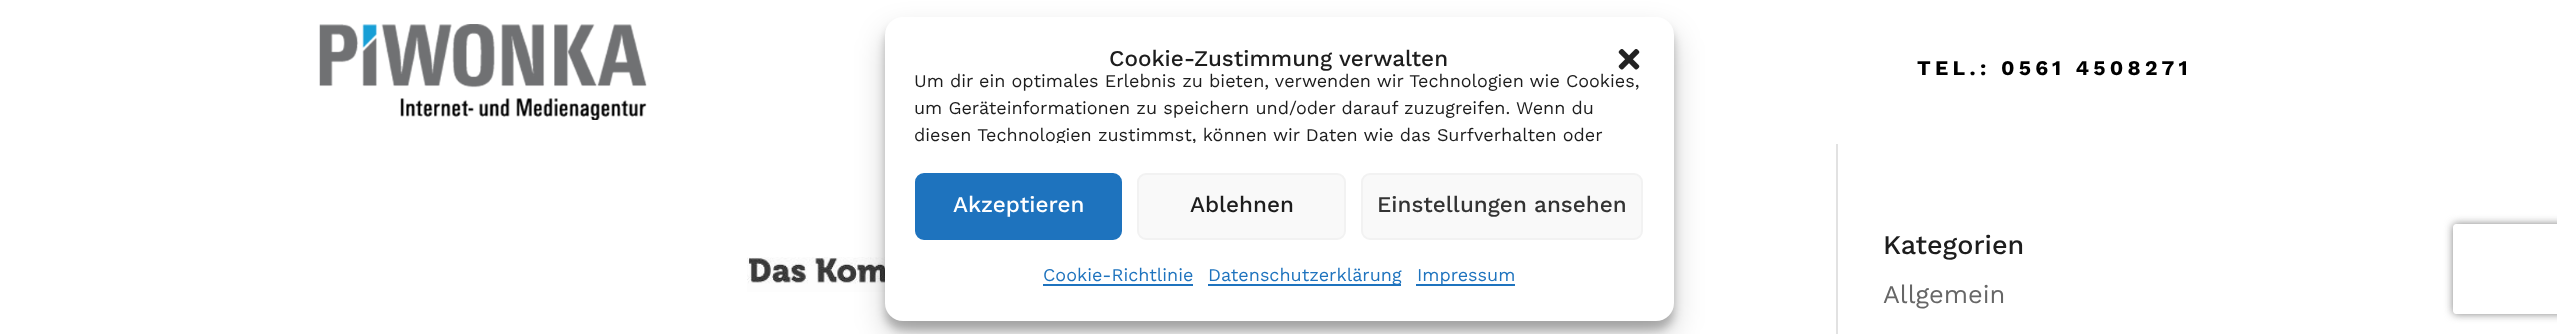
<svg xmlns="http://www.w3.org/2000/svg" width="2557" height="334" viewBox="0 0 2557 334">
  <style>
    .t1 { font: 500 22.5px Work Sans; fill: #1d1d1d; }
    .t2 { font: 18px Work Sans; fill: #1d1d1d; }
    .t3 { font: 500 22.5px Work Sans; fill: #fff; }
    .t4 { font: 500 22.5px Work Sans; fill: #333; }
    .t5 { font: 18px Work Sans; fill: #1e73be; }
    .t6 { font: bold 21px Work Sans; letter-spacing: 4.25px; fill: #000; }
    .t7 { font: 500 27px Work Sans; fill: #1d1d1d; }
    .t8 { font: 25.5px Work Sans; fill: #666; }
  </style>
  <defs>
    <clipPath id="clip1"><rect x="915" y="69" width="729" height="74"/></clipPath>
    <clipPath id="clip2"><path d="M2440 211H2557V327H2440ZM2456 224H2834C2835.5 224 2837 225.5 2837 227V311C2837 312.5 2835.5 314 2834 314H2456C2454.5 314 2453 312.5 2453 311V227C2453 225.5 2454.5 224 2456 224Z" clip-rule="evenodd"/></clipPath>
  </defs>
  <rect width="100%" height="100%" fill="#fff"/>
  <image x="747" y="257" width="138" height="35" href="images/3.png"/>
  <rect x="885" y="26" width="789" height="304" rx="18" fill="#0000003b" filter="blur(4.5px)"/>
  <rect x="885" y="32" width="789" height="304" rx="18" fill="#00000030" filter="blur(15px)"/>
  <rect x="885" y="17" width="789" height="304" rx="18" fill="#fff"/>
  <text x="1109" y="66" class="t1">Cookie-Zustimmung verwalten</text>
  <image x="1618" y="49" width="22" height="21" href="images/1.png"/>
  <text x="914" y="87" class="t2">Um dir ein optimales Erlebnis zu bieten, verwenden wir Technologien wie Cookies,</text>
  <text x="914" y="114" class="t2">um Geräteinformationen zu speichern und/oder darauf zuzugreifen. Wenn du</text>
  <g clip-path="url(#clip1)">
    <text x="914" y="141" class="t2">diesen Technologien zustimmst, können wir Daten wie das Surfverhalten oder</text>
  </g>
  <rect x="916" y="174" width="205" height="65" rx="8" fill="#1e73be" stroke="#1e73be" stroke-width="2"/>
  <text x="953" y="212" class="t3">Akzeptieren</text>
  <rect x="1138" y="174" width="207" height="65" rx="8" fill="#f9f9f9" stroke="#f2f2f2" stroke-width="2"/>
  <text x="1190" y="212" class="t1">Ablehnen</text>
  <rect x="1362" y="174" width="280" height="65" rx="8" fill="#f9f9f9" stroke="#f2f2f2" stroke-width="2"/>
  <text x="1377" y="212" class="t4">Einstellungen ansehen</text>
  <text x="1043" y="281" class="t5">Cookie-Richtlinie</text>
  <rect x="1043" y="284" width="150" height="2" fill="#1e73be"/>
  <rect x="1208" y="284" width="193" height="2" fill="#1e73be"/>
  <text x="1208" y="281" class="t5">Datenschutzerklärung</text>
  <rect x="1416" y="284" width="99" height="2" fill="#1e73be"/>
  <text x="1417" y="281" class="t5">Impressum</text>
  <image x="319" y="24" width="328" height="96" href="images/2.png"/>
  <text x="1917" y="75" class="t6">TEL.: 0561 4508271</text>
  <rect x="1836" y="144" width="2" height="190" fill="#e2e2e2"/>
  <text x="1883" y="254" class="t7">Kategorien</text>
  <text x="1883" y="303" class="t8">Allgemein</text>
  <g clip-path="url(#clip2)">
    <rect x="2453" y="224" width="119" height="90" rx="3" fill="#808080" filter="blur(4px)"/>
  </g>
</svg>
